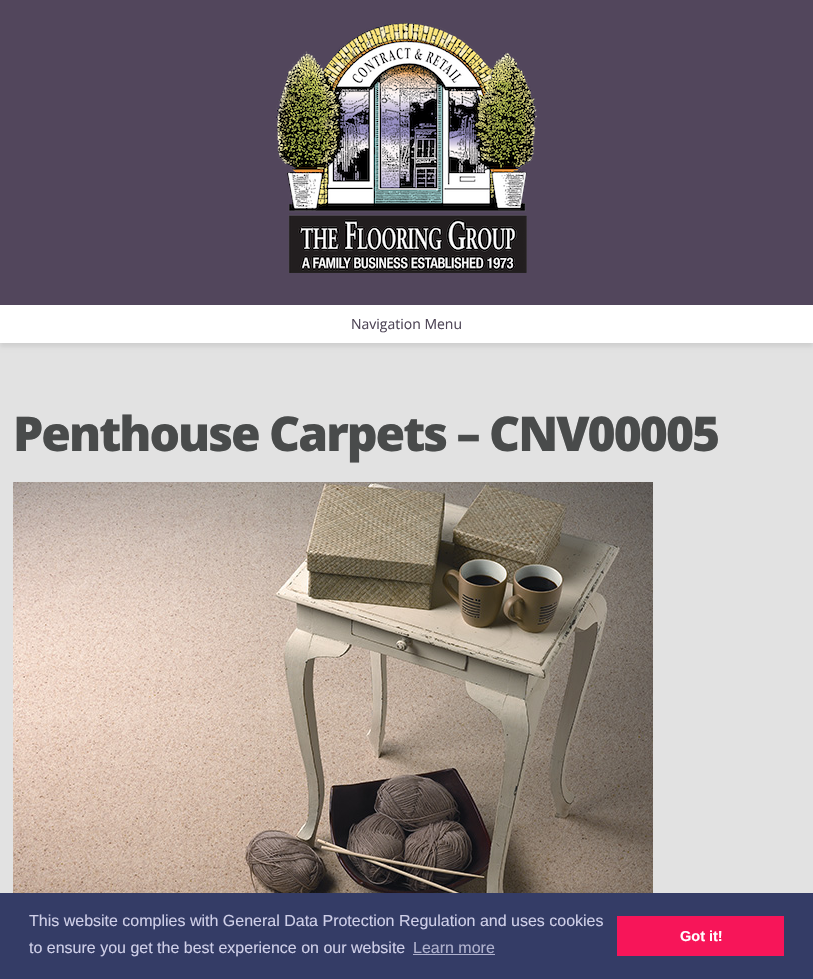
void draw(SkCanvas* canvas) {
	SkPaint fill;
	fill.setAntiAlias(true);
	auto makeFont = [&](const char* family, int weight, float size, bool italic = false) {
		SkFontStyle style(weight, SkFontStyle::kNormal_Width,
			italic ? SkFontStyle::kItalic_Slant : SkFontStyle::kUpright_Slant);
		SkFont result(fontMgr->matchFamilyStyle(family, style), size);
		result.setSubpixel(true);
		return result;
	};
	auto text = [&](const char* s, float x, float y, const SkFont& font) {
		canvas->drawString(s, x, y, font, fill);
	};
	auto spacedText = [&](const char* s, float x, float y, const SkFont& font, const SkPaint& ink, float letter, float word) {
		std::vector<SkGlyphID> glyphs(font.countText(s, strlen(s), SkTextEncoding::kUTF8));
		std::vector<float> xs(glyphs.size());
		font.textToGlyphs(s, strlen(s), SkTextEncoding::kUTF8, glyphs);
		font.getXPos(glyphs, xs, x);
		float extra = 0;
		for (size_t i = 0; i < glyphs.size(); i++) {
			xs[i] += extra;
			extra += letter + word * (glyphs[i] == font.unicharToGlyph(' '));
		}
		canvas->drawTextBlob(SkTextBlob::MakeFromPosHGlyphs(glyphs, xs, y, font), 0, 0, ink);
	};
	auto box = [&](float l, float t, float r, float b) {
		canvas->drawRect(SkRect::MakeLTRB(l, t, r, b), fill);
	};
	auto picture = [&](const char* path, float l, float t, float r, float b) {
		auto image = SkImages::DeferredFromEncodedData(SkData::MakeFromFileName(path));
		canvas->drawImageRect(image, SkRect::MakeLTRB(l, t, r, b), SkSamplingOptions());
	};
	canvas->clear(0xFFE2E2E2);
	fill.setColor(0x14000000);
	fill.setMaskFilter(SkMaskFilter::MakeBlur(kNormal_SkBlurStyle, 2));
	canvas->drawRect(SkRect::MakeLTRB(0, 4, 813, 347), fill);
	fill.setMaskFilter(nullptr);
	fill.setColor(0xFF52465C);
	box(0, 0, 813, 305);
	picture("image0.png", 276, 23, 537, 273);
	fill.setColor(0xFFFFFFFF);
	box(0, 305, 813, 343);
	picture("image1.png", 13, 482, 653, 893);
	fill.setColor(0xFF343C66);
	box(0, 893, 813, 979);
	fill.setColor(0xFFB0B2CE);
	box(413, 954, 495, 955);
	fill.setColor(0xFFF71559);
	box(617, 916, 784, 956);
	auto font1 = makeFont("Open Sans", 400, 14);
	fill.setColor(0xFF4F4657);
	text("Navigation Menu", 351, 329, font1);
	auto font2 = makeFont("Open Sans", 800, 48);
	fill.setColor(0xFF494B4B);
	spacedText("Penthouse Carpets – CNV00005", 13, 451, font2, fill, -2, 0);
	auto font3 = makeFont("Liberation Sans", 400, 16);
	fill.setColor(0xFFCFCFE8);
	text("This website complies with General Data Protection Regulation and uses cookies", 29, 926, font3);
	text("to ensure you get the best experience on our website", 29, 953, font3);
	fill.setColor(0xFFB0B2CE);
	text("Learn more", 413, 953, font3);
	auto font4 = makeFont("Liberation Sans", 700, 14.5f);
	fill.setColor(0xFFFFFFFF);
	text("Got it!", 680, 941, font4);
}
